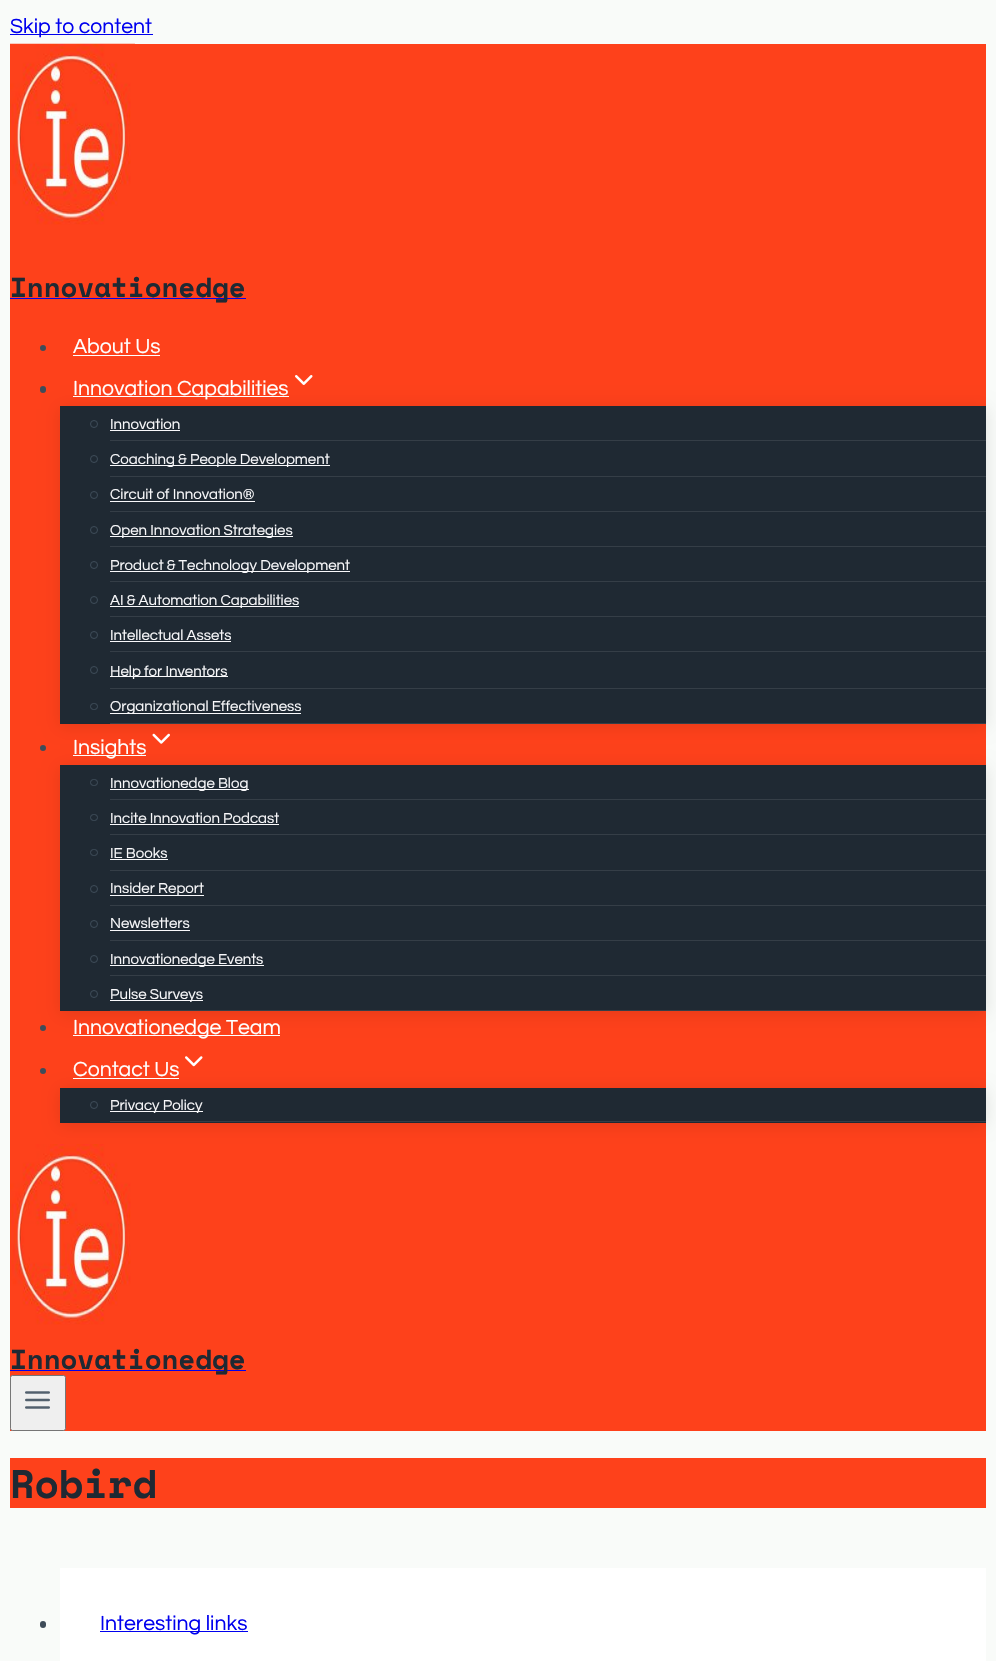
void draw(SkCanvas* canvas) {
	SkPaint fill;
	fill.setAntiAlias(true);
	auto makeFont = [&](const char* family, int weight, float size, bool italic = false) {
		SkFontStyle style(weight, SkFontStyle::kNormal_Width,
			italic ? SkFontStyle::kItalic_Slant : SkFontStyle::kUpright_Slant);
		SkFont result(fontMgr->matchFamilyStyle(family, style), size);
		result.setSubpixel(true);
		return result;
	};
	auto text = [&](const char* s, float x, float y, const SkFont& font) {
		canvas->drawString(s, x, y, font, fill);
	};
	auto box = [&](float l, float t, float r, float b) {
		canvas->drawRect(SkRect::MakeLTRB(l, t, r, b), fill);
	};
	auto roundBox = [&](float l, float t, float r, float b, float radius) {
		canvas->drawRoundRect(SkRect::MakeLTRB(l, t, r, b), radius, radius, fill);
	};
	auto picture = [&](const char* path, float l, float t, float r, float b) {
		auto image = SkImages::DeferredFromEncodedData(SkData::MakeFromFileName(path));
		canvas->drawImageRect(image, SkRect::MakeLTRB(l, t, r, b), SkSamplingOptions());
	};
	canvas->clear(0xFFF9FBF9);
	fill.setColor(0xFF0000EE);
	box(10, 34, 153, 35);
	fill.setColor(0xFFFE411B);
	box(10, 44, 986, 1431);
	picture("image0.png", 10, 43, 135, 225);
	fill.setColor(0xFF0000EE);
	box(10, 298, 246, 299);
	fill.setColor(0xFF3E4C59);
	canvas->drawCircle(43, 348, 3, fill);
	fill.setColor(0xFFFFFFFF);
	box(73, 355, 160, 356);
	fill.setColor(0x1A000000);
	fill.setMaskFilter(SkMaskFilter::MakeBlur(kNormal_SkBlurStyle, 8));
	canvas->drawRect(SkRect::MakeLTRB(60, 409, 986, 726), fill);
	fill.setMaskFilter(nullptr);
	fill.setColor(0xFF3E4C59);
	roundBox(40, 386, 46, 393, 3);
	fill.setColor(0xFFFFFFFF);
	box(73, 396, 289, 397);
	picture("image1.png", 295, 375, 313, 385);
	fill.setColor(0xFF1F2933);
	box(60, 406, 986, 724);
	fill.setColor(0xFF353E47);
	box(110, 440, 986, 441);
	fill.setStyle(SkPaint::kStroke_Style);
	fill.setStrokeWidth(1);
	fill.setColor(0xFF3E4C59);
	canvas->drawCircle(94, 424, 3.5f, fill);
	fill.setStyle(SkPaint::kFill_Style);
	fill.setColor(0xFFF9F9FB);
	box(110, 430, 180, 431);
	fill.setColor(0xFF353E47);
	box(110, 476, 986, 477);
	fill.setStyle(SkPaint::kStroke_Style);
	fill.setColor(0xFF3E4C59);
	canvas->drawCircle(94, 459, 3.5f, fill);
	fill.setStyle(SkPaint::kFill_Style);
	fill.setColor(0xFFF9F9FB);
	box(110, 465, 330, 466);
	fill.setColor(0xFF353E47);
	box(110, 511, 986, 512);
	fill.setStyle(SkPaint::kStroke_Style);
	fill.setColor(0xFF3E4C59);
	canvas->drawCircle(94, 495, 3.5f, fill);
	fill.setStyle(SkPaint::kFill_Style);
	fill.setColor(0xFFF9F9FB);
	box(110, 501, 255, 502);
	fill.setColor(0xFF353E47);
	box(110, 546, 986, 547);
	fill.setStyle(SkPaint::kStroke_Style);
	fill.setColor(0xFF3E4C59);
	canvas->drawCircle(94, 530, 3.5f, fill);
	fill.setStyle(SkPaint::kFill_Style);
	fill.setColor(0xFFF9F9FB);
	box(110, 536, 293, 537);
	fill.setColor(0xFF353E47);
	box(110, 581, 986, 582);
	fill.setStyle(SkPaint::kStroke_Style);
	fill.setColor(0xFF3E4C59);
	canvas->drawCircle(94, 565, 3.5f, fill);
	fill.setStyle(SkPaint::kFill_Style);
	fill.setColor(0xFFF9F9FB);
	box(110, 571, 350, 572);
	fill.setColor(0xFF353E47);
	box(110, 616, 986, 617);
	fill.setStyle(SkPaint::kStroke_Style);
	fill.setColor(0xFF3E4C59);
	canvas->drawCircle(94, 600, 3.5f, fill);
	fill.setStyle(SkPaint::kFill_Style);
	fill.setColor(0xFFF9F9FB);
	box(110, 606, 299, 607);
	fill.setColor(0xFF353E47);
	box(110, 651, 986, 652);
	fill.setStyle(SkPaint::kStroke_Style);
	fill.setColor(0xFF3E4C59);
	canvas->drawCircle(94, 635, 3.5f, fill);
	fill.setStyle(SkPaint::kFill_Style);
	fill.setColor(0xFFF9F9FB);
	box(110, 641, 231, 642);
	fill.setColor(0xFF353E47);
	box(110, 688, 986, 689);
	fill.setStyle(SkPaint::kStroke_Style);
	fill.setColor(0xFF3E4C59);
	canvas->drawCircle(94, 670, 3.5f, fill);
	fill.setStyle(SkPaint::kFill_Style);
	fill.setColor(0xFFF9F9FB);
	box(110, 676, 228, 677);
	fill.setColor(0xFF353E47);
	box(110, 723, 986, 724);
	fill.setStyle(SkPaint::kStroke_Style);
	fill.setColor(0xFF3E4C59);
	canvas->drawRoundRect(SkRect::MakeLTRB(90.5f, 703.5f, 97.5f, 709.5f), 3, 3, fill);
	fill.setStyle(SkPaint::kFill_Style);
	fill.setColor(0xFFF9F9FB);
	box(110, 713, 301, 714);
	fill.setColor(0x1A000000);
	fill.setMaskFilter(SkMaskFilter::MakeBlur(kNormal_SkBlurStyle, 8));
	canvas->drawRect(SkRect::MakeLTRB(60, 768, 986, 1014), fill);
	fill.setMaskFilter(nullptr);
	fill.setColor(0xFF3E4C59);
	canvas->drawCircle(43, 748, 3, fill);
	fill.setColor(0xFFFFFFFF);
	box(73, 755, 146, 756);
	picture("image2.png", 152, 733, 170, 744);
	fill.setColor(0xFF1F2933);
	box(60, 765, 986, 1011);
	fill.setColor(0xFF353E47);
	box(110, 799, 986, 800);
	fill.setStyle(SkPaint::kStroke_Style);
	fill.setColor(0xFF3E4C59);
	canvas->drawRoundRect(SkRect::MakeLTRB(90.5f, 779.5f, 97.5f, 785.5f), 3, 3, fill);
	fill.setStyle(SkPaint::kFill_Style);
	fill.setColor(0xFFF9F9FB);
	box(110, 789, 249, 790);
	fill.setColor(0xFF353E47);
	box(110, 834, 986, 835);
	fill.setStyle(SkPaint::kStroke_Style);
	fill.setColor(0xFF3E4C59);
	canvas->drawRoundRect(SkRect::MakeLTRB(90.5f, 814.5f, 97.5f, 820.5f), 3, 3, fill);
	fill.setStyle(SkPaint::kFill_Style);
	fill.setColor(0xFFF9F9FB);
	box(110, 824, 279, 825);
	fill.setColor(0xFF353E47);
	box(110, 870, 986, 871);
	fill.setStyle(SkPaint::kStroke_Style);
	fill.setColor(0xFF3E4C59);
	canvas->drawRoundRect(SkRect::MakeLTRB(90.5f, 849.5f, 97.5f, 855.5f), 3, 3, fill);
	fill.setStyle(SkPaint::kFill_Style);
	fill.setColor(0xFFF9F9FB);
	box(110, 859, 168, 860);
	fill.setColor(0xFF353E47);
	box(110, 905, 986, 906);
	fill.setStyle(SkPaint::kStroke_Style);
	fill.setColor(0xFF3E4C59);
	canvas->drawCircle(94, 889, 3.5f, fill);
	fill.setStyle(SkPaint::kFill_Style);
	fill.setColor(0xFFF9F9FB);
	box(110, 895, 204, 896);
	fill.setColor(0xFF353E47);
	box(110, 940, 986, 941);
	fill.setStyle(SkPaint::kStroke_Style);
	fill.setColor(0xFF3E4C59);
	canvas->drawCircle(94, 924, 3.5f, fill);
	fill.setStyle(SkPaint::kFill_Style);
	fill.setColor(0xFFF9F9FB);
	box(110, 930, 190, 931);
	fill.setColor(0xFF353E47);
	box(110, 975, 986, 976);
	fill.setStyle(SkPaint::kStroke_Style);
	fill.setColor(0xFF3E4C59);
	canvas->drawCircle(94, 959, 3.5f, fill);
	fill.setStyle(SkPaint::kFill_Style);
	fill.setColor(0xFFF9F9FB);
	box(110, 965, 264, 966);
	fill.setColor(0xFF353E47);
	box(110, 1010, 986, 1011);
	fill.setStyle(SkPaint::kStroke_Style);
	fill.setColor(0xFF3E4C59);
	canvas->drawCircle(94, 994, 3.5f, fill);
	fill.setStyle(SkPaint::kFill_Style);
	fill.setColor(0xFFF9F9FB);
	box(110, 1000, 203, 1001);
	fill.setColor(0xFF3E4C59);
	canvas->drawCircle(43, 1028, 3, fill);
	fill.setColor(0xFFFFFFFF);
	box(73, 1035, 280, 1036);
	fill.setColor(0x1A000000);
	fill.setMaskFilter(SkMaskFilter::MakeBlur(kNormal_SkBlurStyle, 8));
	canvas->drawRect(SkRect::MakeLTRB(60, 1090, 986, 1125), fill);
	fill.setMaskFilter(nullptr);
	fill.setColor(0xFF3E4C59);
	canvas->drawCircle(43, 1071, 3, fill);
	fill.setColor(0xFFFFFFFF);
	box(73, 1078, 179, 1079);
	picture("image3.png", 185, 1056, 203, 1067);
	fill.setColor(0xFF1F2933);
	box(60, 1088, 986, 1123);
	fill.setColor(0xFF353E47);
	box(110, 1121, 986, 1122);
	fill.setStyle(SkPaint::kStroke_Style);
	fill.setColor(0xFF3E4C59);
	canvas->drawCircle(94, 1105, 3.5f, fill);
	fill.setStyle(SkPaint::kFill_Style);
	fill.setColor(0xFFF9F9FB);
	box(110, 1111, 203, 1112);
	picture("image4.png", 10, 1144, 131, 1325);
	fill.setColor(0xFF0000EE);
	box(10, 1370, 246, 1371);
	fill.setColor(0xFFEFEFEF);
	canvas->drawRoundRect(SkRect::MakeLTRB(10.5f, 1375.5f, 65.5f, 1430.5f), 2, 2, fill);
	fill.setStyle(SkPaint::kStroke_Style);
	fill.setColor(0xFF767676);
	canvas->drawRoundRect(SkRect::MakeLTRB(10.5f, 1375.5f, 65.5f, 1430.5f), 2, 2, fill);
	picture("image5.png", 25, 1391, 50, 1409);
	fill.setStyle(SkPaint::kFill_Style);
	fill.setColor(0xFFFE411B);
	box(10, 1458, 986, 1508);
	fill.setColor(0xFF3E4C59);
	roundBox(40, 1621, 46, 1628, 3);
	fill.setColor(0xFFFFFFFF);
	box(60, 1568, 986, 1661);
	fill.setColor(0xFF0000EE);
	box(100, 1631, 248, 1632);
	auto font1 = makeFont("Questrial", 400, 21.25f);
	text("Skip to content", 10, 33, font1);
	auto font2 = makeFont("Space Mono", 700, 27.5f);
	fill.setColor(0xFF1F2933);
	text("Innovationedge", 10, 297, font2);
	fill.setColor(0xFFFFFFFF);
	text("About Us", 73, 353, font1);
	text("Innovation Capabilities", 73, 395, font1);
	auto font3 = makeFont("Questrial", 400, 15);
	fill.setColor(0xFFF9F9FB);
	text("Innovation", 110, 429, font3);
	text("Coaching & People Development", 110, 464, font3);
	text("Circuit of Innovation®", 110, 499, font3);
	text("Open Innovation Strategies", 110, 535, font3);
	text("Product & Technology Development", 110, 570, font3);
	text("AI & Automation Capabilities", 110, 605, font3);
	text("Intellectual Assets", 110, 640, font3);
	text("Help for Inventors", 110, 676, font3);
	text("Organizational Effectiveness", 110, 711, font3);
	fill.setColor(0xFFFFFFFF);
	text("Insights", 73, 754, font1);
	fill.setColor(0xFFF9F9FB);
	text("Innovationedge Blog", 110, 788, font3);
	text("Incite Innovation Podcast", 110, 823, font3);
	text("IE Books", 110, 858, font3);
	text("Insider Report", 110, 893, font3);
	text("Newsletters", 110, 928, font3);
	text("Innovationedge Events", 110, 964, font3);
	text("Pulse Surveys", 110, 999, font3);
	fill.setColor(0xFFFFFFFF);
	text("Innovationedge Team", 73, 1034, font1);
	text("Contact Us", 73, 1076, font1);
	fill.setColor(0xFFF9F9FB);
	text("Privacy Policy", 110, 1110, font3);
	fill.setColor(0xFF1F2933);
	text("Innovationedge", 10, 1369, font2);
	auto font4 = makeFont("Space Mono", 700, 40);
	text("Robird", 10, 1498, font4);
	fill.setColor(0xFF0000EE);
	text("Interesting links", 100, 1630, font1);
}
